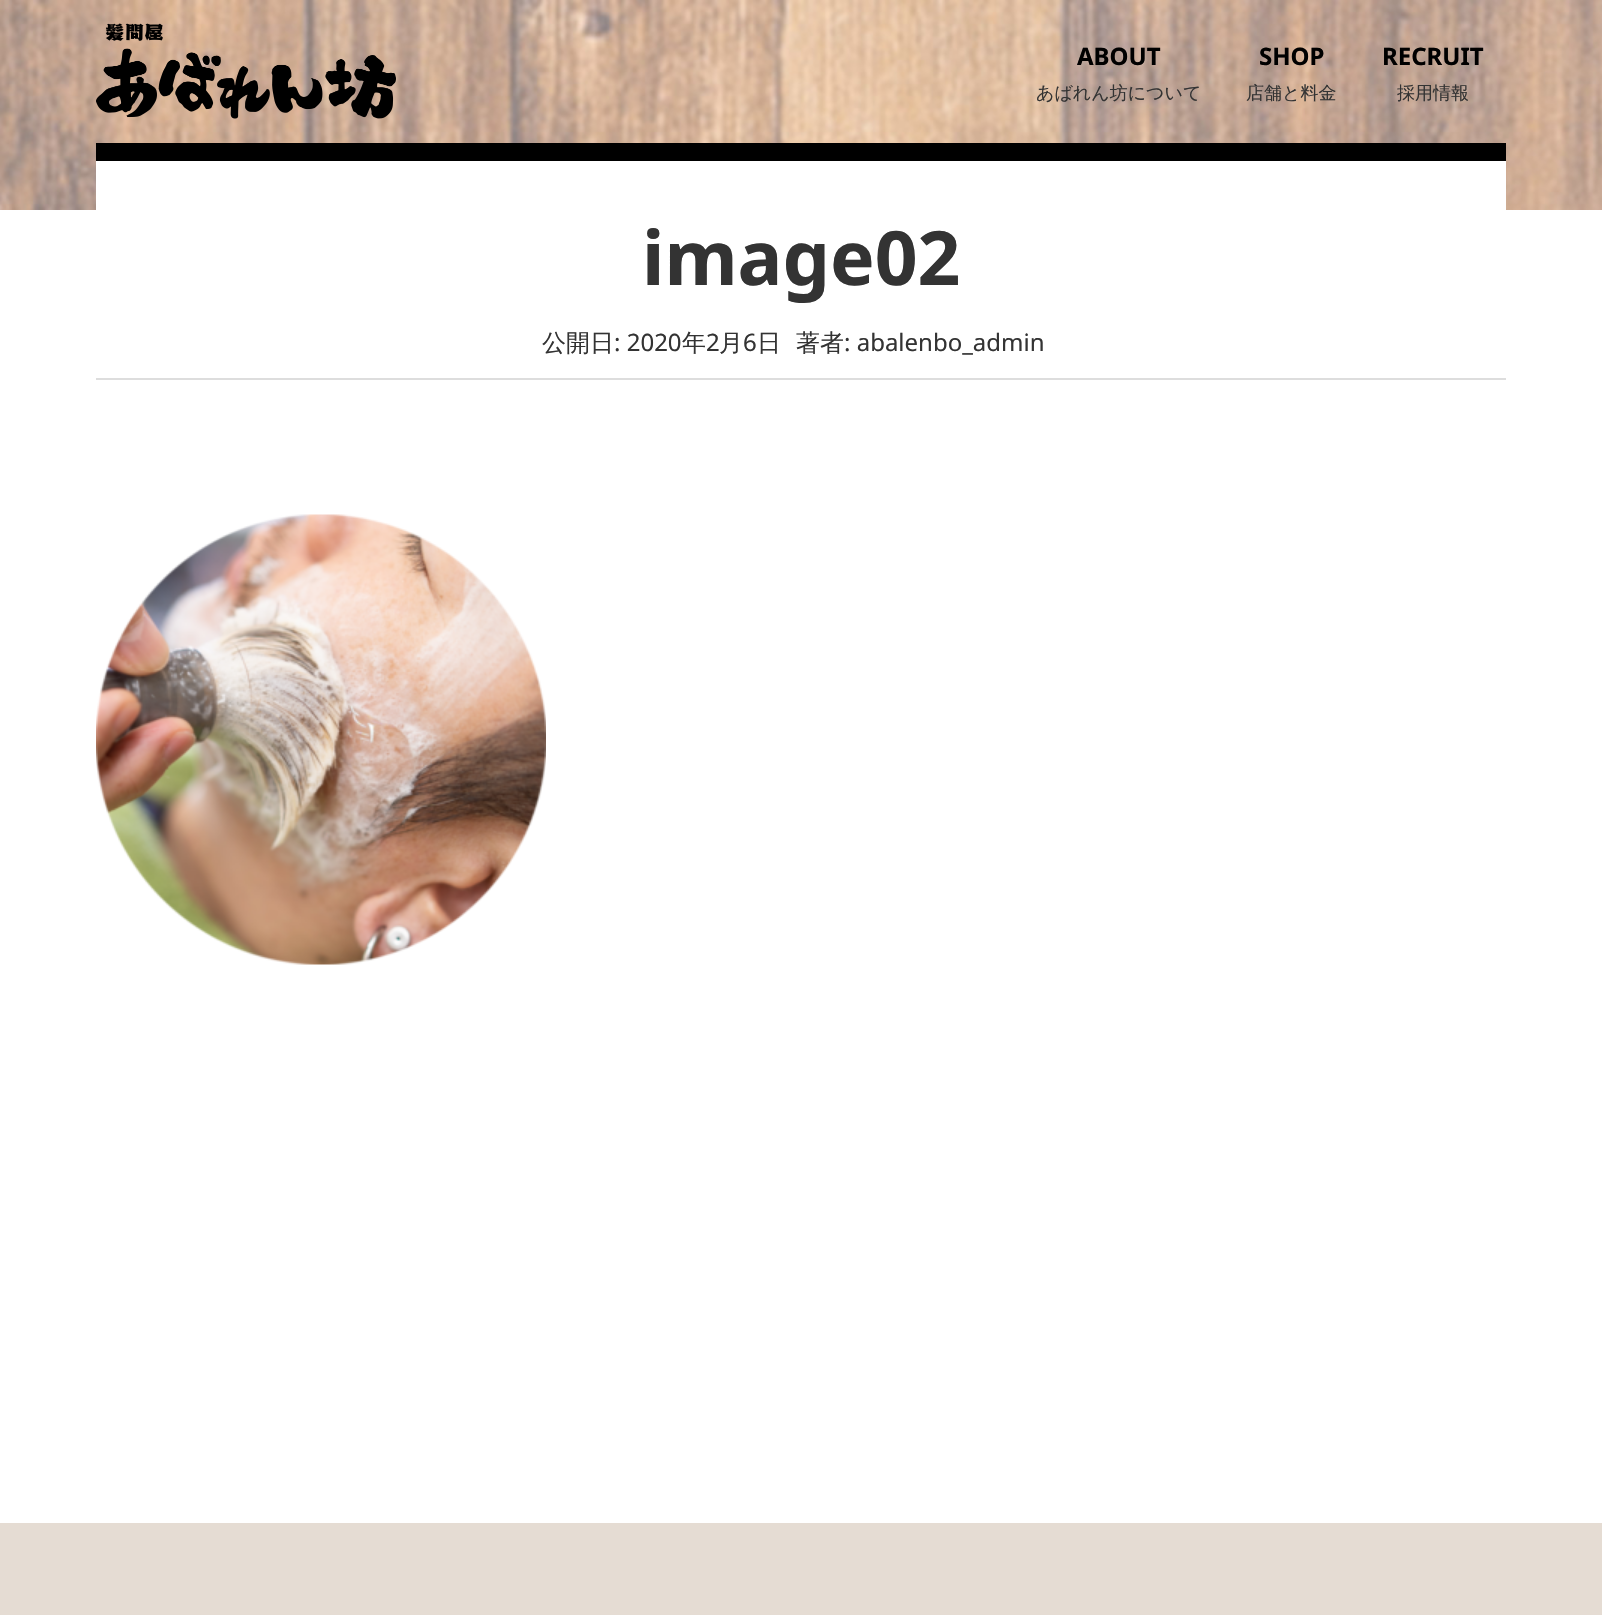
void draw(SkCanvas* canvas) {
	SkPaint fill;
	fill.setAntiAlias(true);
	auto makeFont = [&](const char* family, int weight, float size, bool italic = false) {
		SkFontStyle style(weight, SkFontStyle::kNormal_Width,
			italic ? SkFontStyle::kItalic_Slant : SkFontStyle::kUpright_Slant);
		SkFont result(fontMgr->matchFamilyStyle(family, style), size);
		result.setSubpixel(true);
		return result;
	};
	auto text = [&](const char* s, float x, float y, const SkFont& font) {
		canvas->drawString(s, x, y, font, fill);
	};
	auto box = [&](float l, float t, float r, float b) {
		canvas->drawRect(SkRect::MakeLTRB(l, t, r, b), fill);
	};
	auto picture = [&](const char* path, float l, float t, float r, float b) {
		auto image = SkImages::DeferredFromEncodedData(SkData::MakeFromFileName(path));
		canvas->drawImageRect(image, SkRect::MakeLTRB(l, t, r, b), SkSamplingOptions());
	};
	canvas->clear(0xFFFFFFFF);
	picture("image0.png", 0, 0, 1602, 210);
	picture("image1.png", 96, 23, 396, 119);
	fill.setColor(0xFFFFFFFF);
	box(96, 161, 1506, 210);
	fill.setColor(0xFF000000);
	box(96, 143, 1506, 161);
	fill.setColor(0xFFDDDDDD);
	box(96, 378, 1506, 380);
	picture("image2.png", 96, 514, 546, 965);
	fill.setColor(0xFFE5DCD3);
	box(0, 1523, 1602, 1615);
	auto font1 = makeFont("Noto Sans", 700, 24);
	fill.setColor(0xFF000000);
	text("ABOUT", 1077, 65, font1);
	auto font2 = makeFont("WenQuanYi Zen Hei", 500, 18);
	fill.setColor(0xFF333333);
	text("あばれん坊について", 1036, 99, font2);
	fill.setColor(0xFF000000);
	text("SHOP", 1259, 65, font1);
	fill.setColor(0xFF333333);
	text("店舗と料金", 1246, 99, font2);
	fill.setColor(0xFF000000);
	text("RECRUIT", 1382, 65, font1);
	fill.setColor(0xFF333333);
	text("採用情報", 1397, 99, font2);
	auto font3 = makeFont("Noto Sans", 700, 75);
	text("image02", 642, 285, font3);
	auto font4 = makeFont("WenQuanYi Zen Hei", 500, 24);
	text("公開日", 542, 351, font4);
	auto font5 = makeFont("Noto Sans", 400, 24);
	text(": 2020", 614, 351, font5);
	text("年", 682, 351, font4);
	text("2", 706, 351, font5);
	text("月", 719, 351, font4);
	text("6", 743, 351, font5);
	text("日", 757, 351, font4);
	text("著者", 796, 351, font4);
	text(": abalenbo_admin", 844, 351, font5);
}
